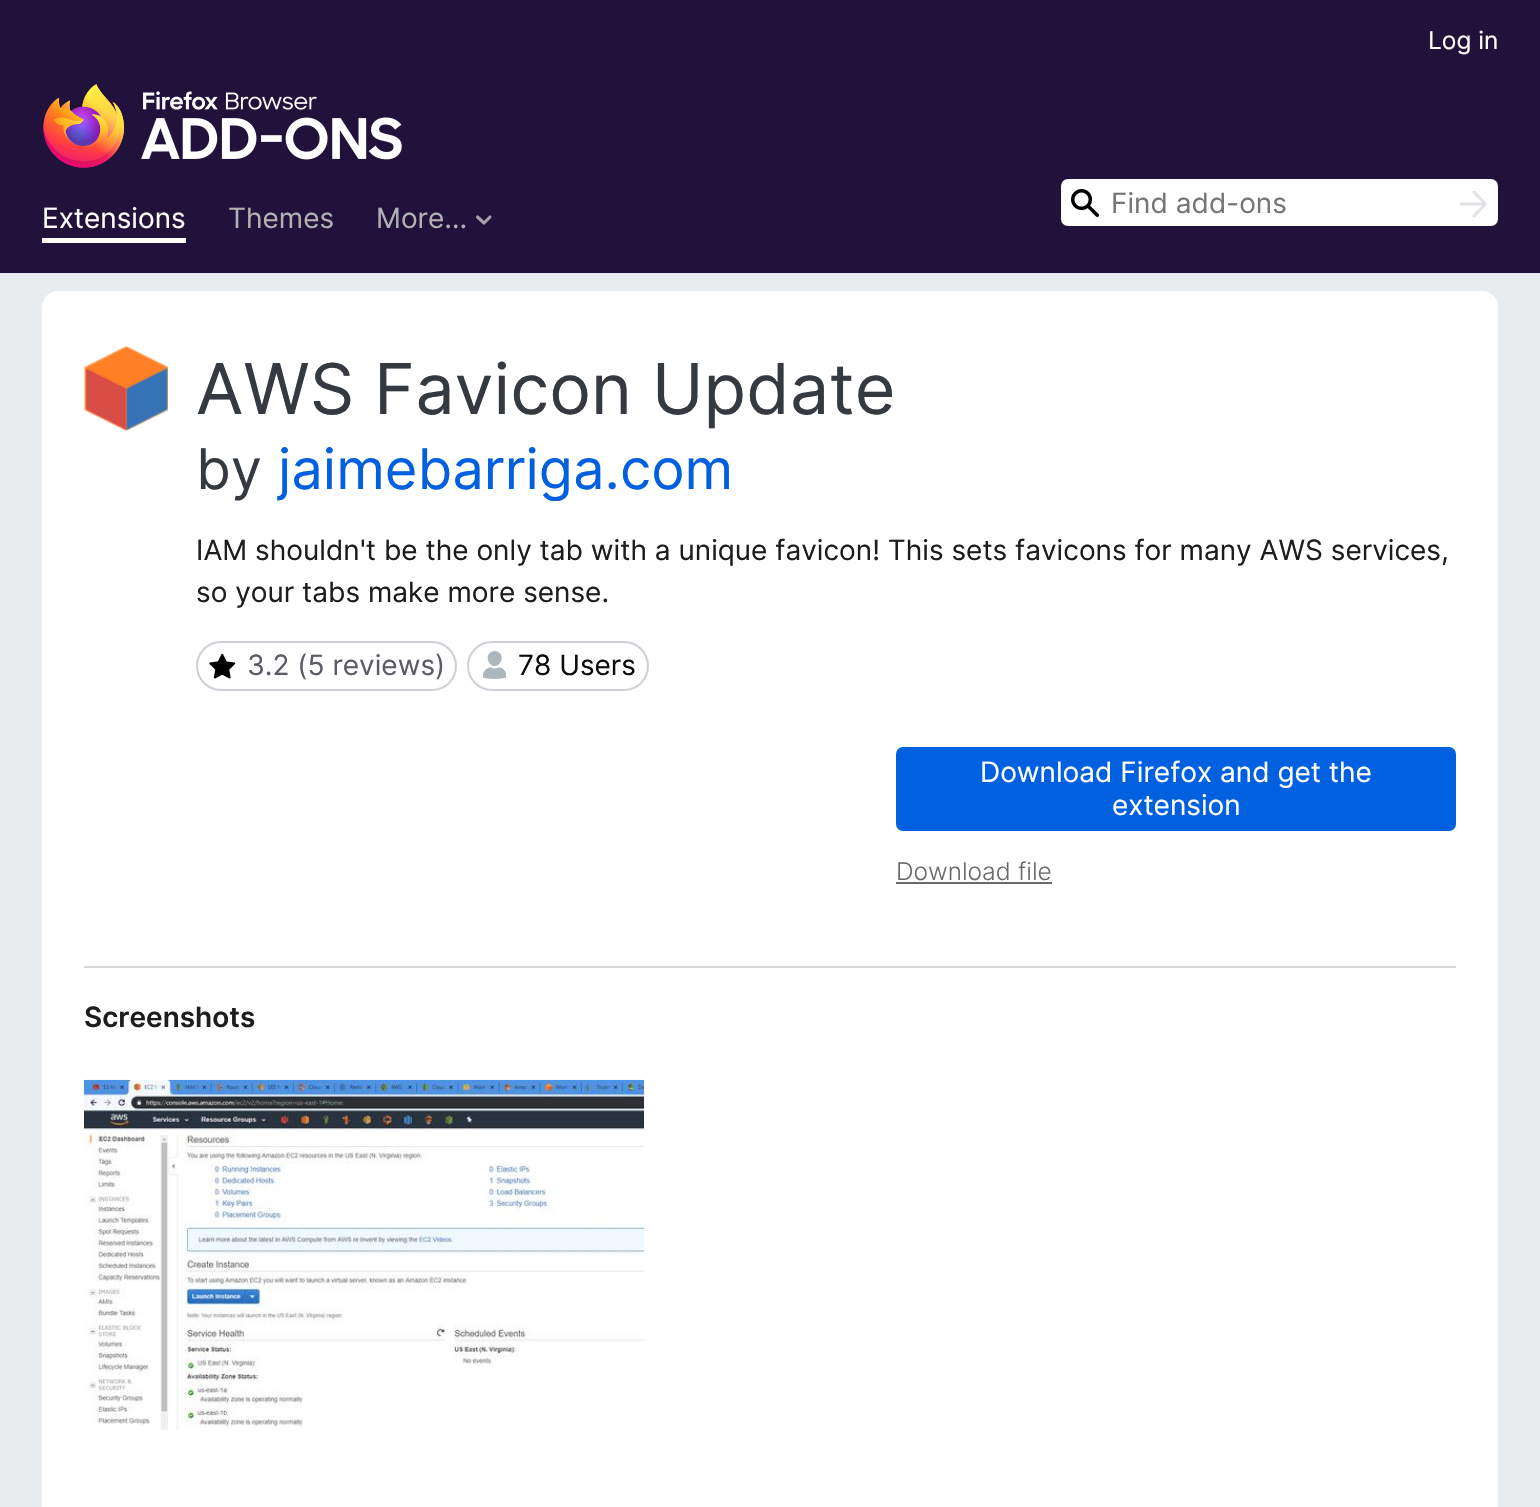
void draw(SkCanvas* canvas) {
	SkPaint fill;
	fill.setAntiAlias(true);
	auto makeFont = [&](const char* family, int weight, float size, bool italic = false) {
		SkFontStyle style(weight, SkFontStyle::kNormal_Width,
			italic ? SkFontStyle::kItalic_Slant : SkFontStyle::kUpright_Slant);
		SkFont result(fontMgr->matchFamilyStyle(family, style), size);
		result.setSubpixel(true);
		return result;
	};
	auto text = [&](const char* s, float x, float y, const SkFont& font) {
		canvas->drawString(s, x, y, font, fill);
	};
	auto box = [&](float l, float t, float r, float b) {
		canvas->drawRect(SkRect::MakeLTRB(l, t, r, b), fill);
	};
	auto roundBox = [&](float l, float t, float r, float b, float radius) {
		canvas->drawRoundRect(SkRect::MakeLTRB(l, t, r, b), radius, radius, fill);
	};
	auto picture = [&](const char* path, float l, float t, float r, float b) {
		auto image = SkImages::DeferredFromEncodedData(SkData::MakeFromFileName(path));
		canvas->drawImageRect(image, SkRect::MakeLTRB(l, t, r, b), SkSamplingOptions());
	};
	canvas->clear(0xFF20123A);
	picture("image0.png", 43, 84, 402, 168);
	fill.setColor(0xFFFFFFFF);
	canvas->drawRoundRect(SkRect::MakeLTRB(1062, 180, 1497, 225), 6, 6, fill);
	fill.setStyle(SkPaint::kStroke_Style);
	fill.setStrokeWidth(2);
	canvas->drawRoundRect(SkRect::MakeLTRB(1062, 180, 1497, 225), 6, 6, fill);
	picture("image1.png", 1071, 189, 1099, 217);
	canvas->save();
	canvas->clipRect(SkRect::MakeLTRB(1460, 191, 1488, 219));
	fill.setStrokeWidth(2.9f);
	fill.setStrokeCap(SkPaint::kRound_Cap);
	fill.setStrokeJoin(SkPaint::kRound_Join);
	fill.setColor(0xFFE1E1E5);
	canvas->drawPath(SkPathBuilder().moveTo(1461, 204).lineTo(1484, 204).moveTo(1474, 192).lineTo(1485.5f, 204).lineTo(1474, 216).detach(), fill);
	canvas->restore();
	fill.setStyle(SkPaint::kFill_Style);
	fill.setColor(0xFFFFFFFF);
	box(42, 238, 186, 243);
	fill.setStyle(SkPaint::kStroke_Style);
	fill.setStrokeWidth(3.1f);
	fill.setColor(0xFFA6A0B0);
	canvas->drawPath(SkPathBuilder().moveTo(490, 217).lineTo(484, 223).lineTo(477.5f, 217).detach(), fill);
	fill.setStyle(SkPaint::kFill_Style);
	fill.setColor(0xFFE9ECEF);
	box(0, 273, 1540, 1507);
	fill.setColor(0xFFFFFFFF);
	roundBox(42, 291, 1498, 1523, 16);
	picture("image2.png", 84, 346, 168, 431);
	fill.setStyle(SkPaint::kStroke_Style);
	fill.setStrokeWidth(2);
	fill.setStrokeCap(SkPaint::kButt_Cap);
	fill.setStrokeJoin(SkPaint::kMiter_Join);
	fill.setColor(0xFFCFCFD8);
	canvas->drawRoundRect(SkRect::MakeLTRB(197, 642, 456, 690), 24, 24, fill);
	picture("image3.png", 209, 653, 236, 679);
	canvas->drawRoundRect(SkRect::MakeLTRB(468, 642, 648, 690), 24, 24, fill);
	picture("image4.png", 483, 651, 506, 679);
	fill.setStyle(SkPaint::kFill_Style);
	fill.setColor(0xFF0060DF);
	roundBox(896, 747, 1456, 831, 7);
	fill.setColor(0xFF6A6A6A);
	box(896, 882, 1052, 884);
	fill.setColor(0xFFD7D7DB);
	box(84, 966, 1456, 968);
	picture("image5.png", 84, 1079, 644, 1430);
	auto font1 = makeFont("Inter", 400, 24.5f);
	fill.setColor(0xFFFFFFFF);
	text("Log in", 1428, 49, font1);
	auto font2 = makeFont("Inter", 400, 28);
	fill.setColor(0xFF757575);
	text("Find add-ons", 1111, 213, font2);
	fill.setColor(0xFFFFFFFF);
	text("Extensions", 42, 228, font2);
	fill.setColor(0xFFB1B1B3);
	text("Themes", 228, 228, font2);
	text("More…", 376, 228, font2);
	auto font3 = makeFont("Inter", 400, 70);
	fill.setColor(0xFF343A40);
	text("AWS Favicon Update", 196, 414, font3);
	auto font4 = makeFont("Inter", 400, 56);
	text("by", 196, 489, font4);
	fill.setColor(0xFF0060DF);
	text("jaimebarriga.com", 278, 489, font4);
	fill.setColor(0xFF1D1D1D);
	text("IAM shouldn't be the only tab with a unique favicon! This sets favicons for many AWS services,", 196, 560, font2);
	text("so your tabs make more sense.", 196, 602, font2);
	fill.setColor(0xFF5B5B66);
	text("3.2 (5 reviews)", 247, 675, font2);
	fill.setColor(0xFF0C0C0D);
	text("78 Users", 518, 675, font2);
	fill.setColor(0xFFFFFFFF);
	text("Download Firefox and get the", 980, 782, font2);
	text("extension", 1112, 815, font2);
	auto font5 = makeFont("Inter", 300, 24.5f);
	fill.setColor(0xFF6A6A6A);
	text("Download file", 896, 880, font5);
	auto font6 = makeFont("Inter", 600, 28);
	fill.setColor(0xFF1D1D1D);
	text("Screenshots", 84, 1027, font6);
}
